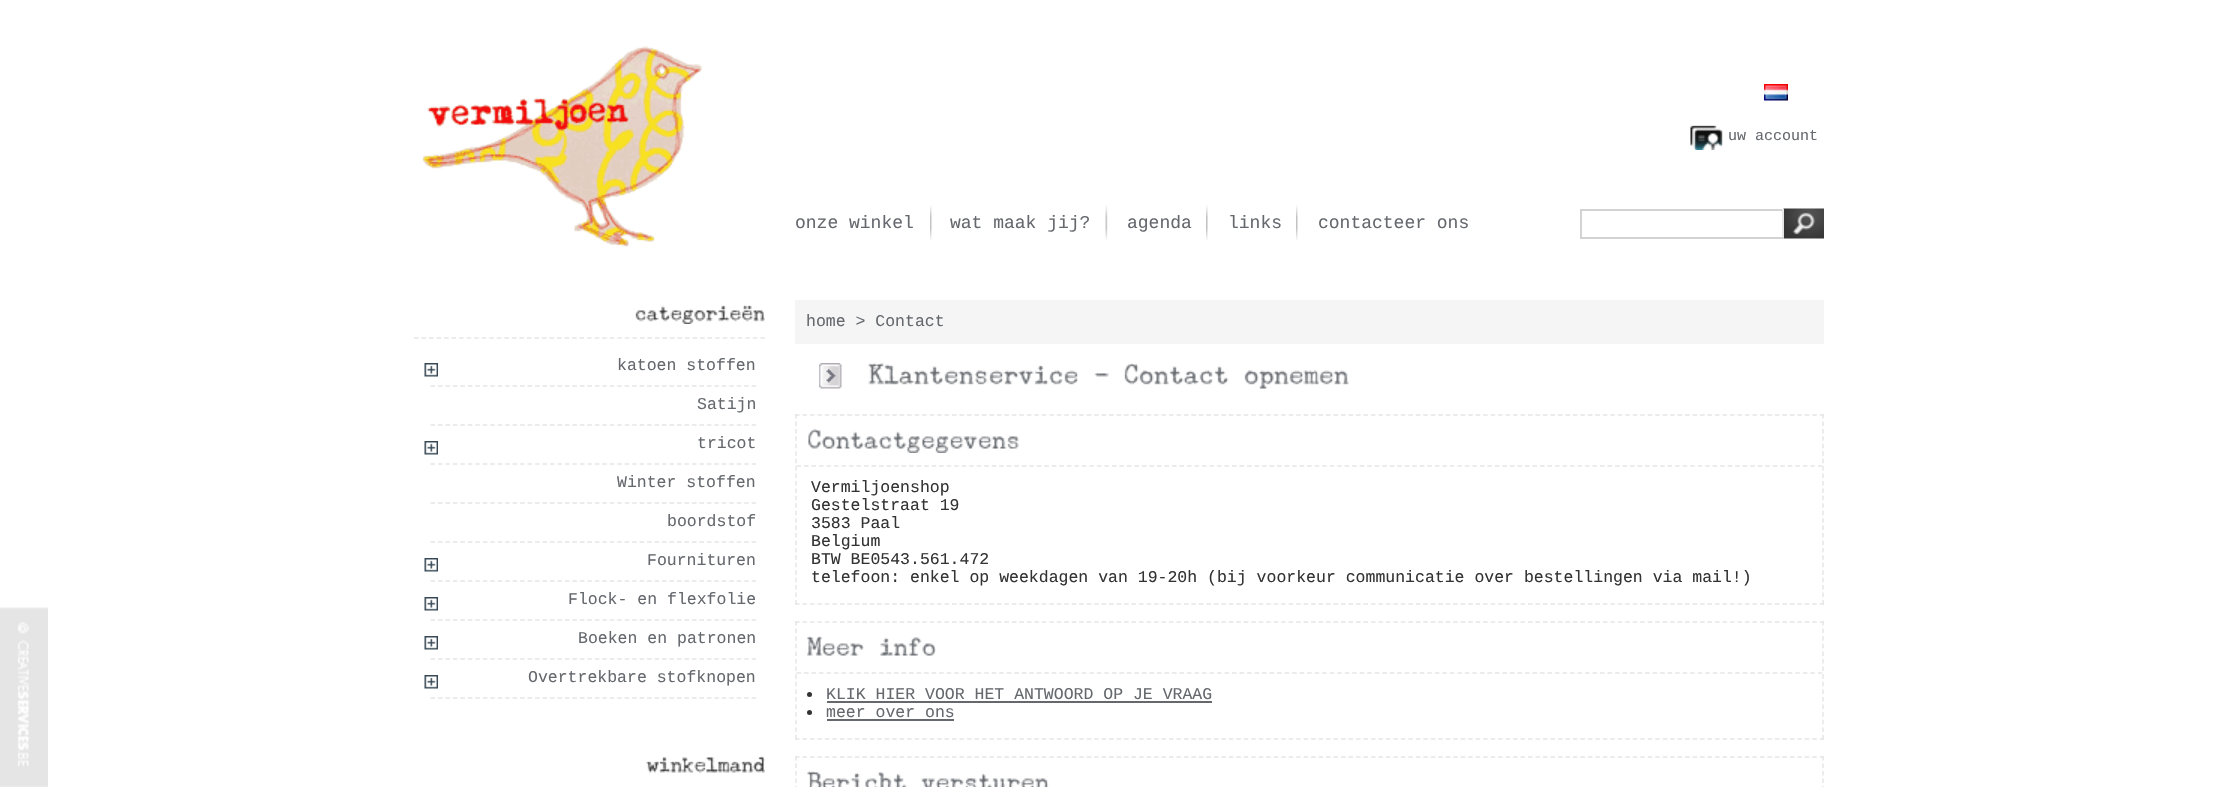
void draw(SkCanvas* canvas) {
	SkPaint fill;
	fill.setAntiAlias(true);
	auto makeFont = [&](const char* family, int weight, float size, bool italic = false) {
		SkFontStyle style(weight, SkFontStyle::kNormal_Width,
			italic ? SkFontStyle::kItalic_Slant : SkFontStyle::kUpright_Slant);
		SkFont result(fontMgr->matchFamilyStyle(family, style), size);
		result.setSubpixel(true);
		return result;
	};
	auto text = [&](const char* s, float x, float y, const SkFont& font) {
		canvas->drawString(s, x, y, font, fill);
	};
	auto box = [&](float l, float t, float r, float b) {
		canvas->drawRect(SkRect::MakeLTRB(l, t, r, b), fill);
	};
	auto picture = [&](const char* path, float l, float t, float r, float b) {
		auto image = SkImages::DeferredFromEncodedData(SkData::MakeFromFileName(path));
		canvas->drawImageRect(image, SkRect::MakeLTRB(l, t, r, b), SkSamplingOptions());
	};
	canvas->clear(0xFFFFFFFF);
	picture("image0.png", 0, 607, 48, 787);
	picture("image1.png", 422, 46, 703, 247);
	picture("image2.png", 1764, 84, 1788, 101);
	picture("image3.png", 1690, 125, 1723, 150);
	picture("image4.png", 930, 205, 932, 241);
	picture("image5.png", 1105, 205, 1108, 241);
	picture("image6.png", 1206, 205, 1208, 241);
	picture("image4.png", 1296, 205, 1298, 241);
	picture("image7.png", 1783, 208, 1824, 239);
	fill.setColor(0xFFD3D3D3);
	box(1580, 209, 1784, 211);
	fill.setColor(0xFFE6E6E6);
	box(1782, 209, 1784, 239);
	fill.setColor(0xFFD3D3D3);
	box(1580, 237, 1784, 239);
	box(1580, 209, 1582, 239);
	fill.setStyle(SkPaint::kStroke_Style);
	fill.setStrokeWidth(1.5f);
	fill.setColor(0xFFE6E6E6);
	fill.setPathEffect(SkDashPathEffect::Make({{4.5f, 3.03f}}, 0));
	canvas->drawPath(SkPathBuilder().moveTo(414, 338).lineTo(765, 338).detach(), fill);
	fill.setPathEffect(nullptr);
	picture("image8.png", 635, 305, 765, 324);
	fill.setPathEffect(SkDashPathEffect::Make({{4.5f, 2.97f}}, 0));
	canvas->drawPath(SkPathBuilder().moveTo(430.5f, 386).lineTo(756, 386).detach(), fill);
	fill.setPathEffect(nullptr);
	picture("image9.png", 424, 363, 438, 377);
	fill.setPathEffect(SkDashPathEffect::Make({{4.5f, 2.97f}}, 0));
	canvas->drawPath(SkPathBuilder().moveTo(430.5f, 425).lineTo(756, 425).detach(), fill);
	fill.setPathEffect(nullptr);
	fill.setPathEffect(SkDashPathEffect::Make({{4.5f, 2.97f}}, 0));
	canvas->drawPath(SkPathBuilder().moveTo(430.5f, 464).lineTo(756, 464).detach(), fill);
	fill.setPathEffect(nullptr);
	picture("image9.png", 424, 441, 438, 455);
	fill.setPathEffect(SkDashPathEffect::Make({{4.5f, 2.97f}}, 0));
	canvas->drawPath(SkPathBuilder().moveTo(430.5f, 503).lineTo(756, 503).detach(), fill);
	fill.setPathEffect(nullptr);
	fill.setPathEffect(SkDashPathEffect::Make({{4.5f, 2.97f}}, 0));
	canvas->drawPath(SkPathBuilder().moveTo(430.5f, 542).lineTo(756, 542).detach(), fill);
	fill.setPathEffect(nullptr);
	fill.setPathEffect(SkDashPathEffect::Make({{4.5f, 2.97f}}, 0));
	canvas->drawPath(SkPathBuilder().moveTo(430.5f, 581).lineTo(756, 581).detach(), fill);
	fill.setPathEffect(nullptr);
	picture("image9.png", 424, 558, 438, 572);
	fill.setPathEffect(SkDashPathEffect::Make({{4.5f, 2.97f}}, 0));
	canvas->drawPath(SkPathBuilder().moveTo(430.5f, 620).lineTo(756, 620).detach(), fill);
	fill.setPathEffect(nullptr);
	picture("image9.png", 424, 597, 438, 611);
	fill.setPathEffect(SkDashPathEffect::Make({{4.5f, 2.97f}}, 0));
	canvas->drawPath(SkPathBuilder().moveTo(430.5f, 659).lineTo(756, 659).detach(), fill);
	fill.setPathEffect(nullptr);
	picture("image9.png", 424, 636, 438, 650);
	fill.setPathEffect(SkDashPathEffect::Make({{4.5f, 2.97f}}, 0));
	canvas->drawPath(SkPathBuilder().moveTo(430.5f, 698).lineTo(756, 698).detach(), fill);
	fill.setPathEffect(nullptr);
	picture("image9.png", 424, 675, 438, 689);
	picture("image10.png", 646, 756, 765, 773);
	fill.setStyle(SkPaint::kFill_Style);
	fill.setColor(0xFFF5F5F5);
	box(795, 300, 1824, 344);
	picture("image11.png", 819, 363, 842, 389);
	picture("image12.png", 868, 362, 1078, 385);
	picture("image13.png", 1094, 373, 1109, 377);
	picture("image14.png", 1124, 363, 1229, 385);
	picture("image15.png", 1244, 370, 1349, 389);
	fill.setStyle(SkPaint::kStroke_Style);
	fill.setColor(0xFFE6E6E6);
	fill.setPathEffect(SkDashPathEffect::Make({{4.5f, 2.98f}}, 0));
	canvas->drawPath(SkPathBuilder().moveTo(795, 415).lineTo(1824, 415).detach(), fill);
	fill.setPathEffect(nullptr);
	fill.setPathEffect(SkDashPathEffect::Make({{4.5f, 2.94f}}, 0));
	canvas->drawPath(SkPathBuilder().moveTo(1823, 414).lineTo(1823, 604.5f).detach(), fill);
	fill.setPathEffect(nullptr);
	fill.setPathEffect(SkDashPathEffect::Make({{4.5f, 2.98f}}, 0));
	canvas->drawPath(SkPathBuilder().moveTo(795, 604).lineTo(1824, 604).detach(), fill);
	fill.setPathEffect(nullptr);
	fill.setPathEffect(SkDashPathEffect::Make({{4.5f, 2.94f}}, 0));
	canvas->drawPath(SkPathBuilder().moveTo(796, 414).lineTo(796, 604.5f).detach(), fill);
	fill.setPathEffect(nullptr);
	fill.setPathEffect(SkDashPathEffect::Make({{4.5f, 3.01f}}, 0));
	canvas->drawPath(SkPathBuilder().moveTo(796.5f, 466).lineTo(1822.5f, 466).detach(), fill);
	fill.setPathEffect(nullptr);
	picture("image16.png", 808, 428, 1019, 453);
	fill.setPathEffect(SkDashPathEffect::Make({{4.5f, 2.98f}}, 0));
	canvas->drawPath(SkPathBuilder().moveTo(795, 622).lineTo(1824, 622).detach(), fill);
	fill.setPathEffect(nullptr);
	fill.setPathEffect(SkDashPathEffect::Make({{4.5f, 3.1f}}, 0));
	canvas->drawPath(SkPathBuilder().moveTo(1823, 621).lineTo(1823, 739.5f).detach(), fill);
	fill.setPathEffect(nullptr);
	fill.setPathEffect(SkDashPathEffect::Make({{4.5f, 2.98f}}, 0));
	canvas->drawPath(SkPathBuilder().moveTo(795, 739).lineTo(1824, 739).detach(), fill);
	fill.setPathEffect(nullptr);
	fill.setPathEffect(SkDashPathEffect::Make({{4.5f, 3.1f}}, 0));
	canvas->drawPath(SkPathBuilder().moveTo(796, 621).lineTo(796, 739.5f).detach(), fill);
	fill.setPathEffect(nullptr);
	fill.setPathEffect(SkDashPathEffect::Make({{4.5f, 3.01f}}, 0));
	canvas->drawPath(SkPathBuilder().moveTo(796.5f, 673).lineTo(1822.5f, 673).detach(), fill);
	fill.setPathEffect(nullptr);
	picture("image17.png", 807, 636, 865, 656);
	picture("image18.png", 880, 637, 936, 656);
	fill.setStyle(SkPaint::kFill_Style);
	fill.setColor(0xFF333333);
	canvas->drawCircle(809.5f, 694.5f, 2.5f, fill);
	fill.setColor(0xFF65696E);
	box(827, 701, 1212, 703);
	fill.setColor(0xFF333333);
	canvas->drawCircle(809.5f, 712.5f, 2.5f, fill);
	fill.setColor(0xFF65696E);
	box(827, 719, 954, 721);
	fill.setStyle(SkPaint::kStroke_Style);
	fill.setColor(0xFFE6E6E6);
	fill.setPathEffect(SkDashPathEffect::Make({{4.5f, 2.98f}}, 0));
	canvas->drawPath(SkPathBuilder().moveTo(795, 757).lineTo(1824, 757).detach(), fill);
	fill.setPathEffect(nullptr);
	fill.setPathEffect(SkDashPathEffect::Make({{4.5f, 3.01f}}, 0));
	canvas->drawPath(SkPathBuilder().moveTo(1823, 756).lineTo(1823, 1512).detach(), fill);
	fill.setPathEffect(nullptr);
	fill.setPathEffect(SkDashPathEffect::Make({{4.5f, 3.01f}}, 0));
	canvas->drawPath(SkPathBuilder().moveTo(796, 756).lineTo(796, 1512).detach(), fill);
	fill.setPathEffect(nullptr);
	picture("image19.png", 807, 771, 907, 787);
	picture("image20.png", 921, 773, 1049, 787);
	auto font1 = makeFont("Liberation Mono", 400, 15);
	fill.setStyle(SkPaint::kFill_Style);
	fill.setColor(0xFF65696E);
	text("uw account", 1728, 140, font1);
	auto font2 = makeFont("Liberation Mono", 400, 18);
	text("onze winkel", 795, 228, font2);
	text("wat maak jij?", 950, 228, font2);
	text("agenda", 1127, 228, font2);
	text("links", 1228, 228, font2);
	text("contacteer ons", 1318, 228, font2);
	auto font3 = makeFont("Liberation Mono", 400, 16.5f);
	text("katoen stoffen", 617, 370, font3);
	text("Satijn", 697, 409, font3);
	text("tricot", 697, 448, font3);
	text("Winter stoffen", 617, 487, font3);
	text("boordstof", 667, 526, font3);
	text("Fournituren", 647, 565, font3);
	text("Flock- en flexfolie", 568, 604, font3);
	text("Boeken en patronen", 578, 643, font3);
	text("Overtrekbare stofknopen", 528, 682, font3);
	text("home > Contact", 806, 326, font3);
	fill.setColor(0xFF333333);
	text("Vermiljoenshop", 811, 492, font3);
	text("Gestelstraat 19", 811, 510, font3);
	text("3583 Paal", 811, 528, font3);
	text("Belgium", 811, 546, font3);
	text("BTW BE0543.561.472", 811, 564, font3);
	text("telefoon: enkel op weekdagen van 19-20h (bij voorkeur communicatie over bestellingen via mail!)", 811, 582, font3);
	fill.setColor(0xFF65696E);
	text("KLIK HIER VOOR HET ANTWOORD OP JE VRAAG", 826, 699, font3);
	text("meer over ons", 826, 717, font3);
}
